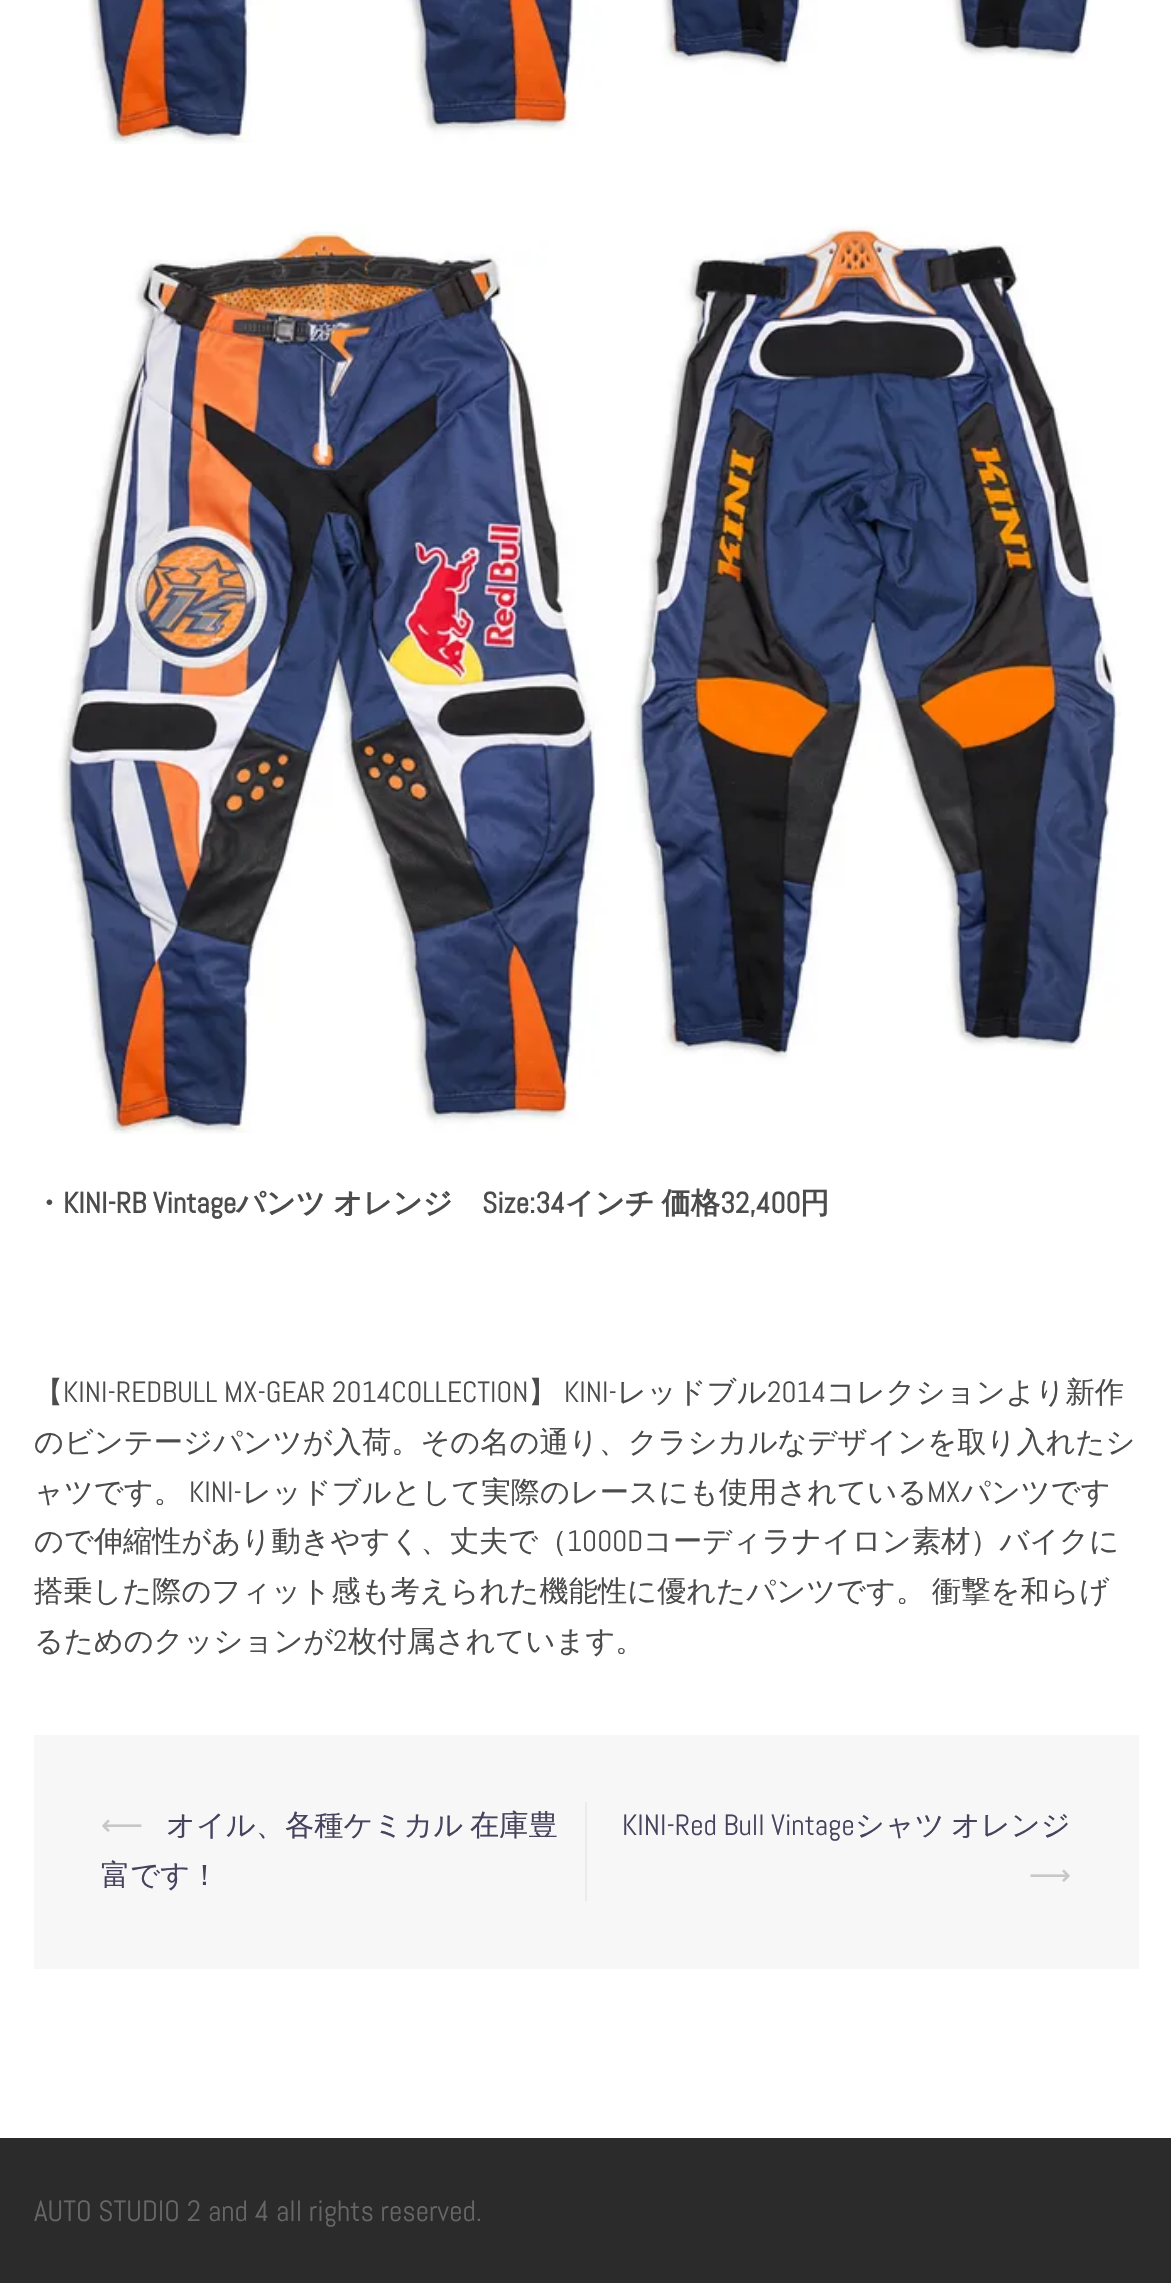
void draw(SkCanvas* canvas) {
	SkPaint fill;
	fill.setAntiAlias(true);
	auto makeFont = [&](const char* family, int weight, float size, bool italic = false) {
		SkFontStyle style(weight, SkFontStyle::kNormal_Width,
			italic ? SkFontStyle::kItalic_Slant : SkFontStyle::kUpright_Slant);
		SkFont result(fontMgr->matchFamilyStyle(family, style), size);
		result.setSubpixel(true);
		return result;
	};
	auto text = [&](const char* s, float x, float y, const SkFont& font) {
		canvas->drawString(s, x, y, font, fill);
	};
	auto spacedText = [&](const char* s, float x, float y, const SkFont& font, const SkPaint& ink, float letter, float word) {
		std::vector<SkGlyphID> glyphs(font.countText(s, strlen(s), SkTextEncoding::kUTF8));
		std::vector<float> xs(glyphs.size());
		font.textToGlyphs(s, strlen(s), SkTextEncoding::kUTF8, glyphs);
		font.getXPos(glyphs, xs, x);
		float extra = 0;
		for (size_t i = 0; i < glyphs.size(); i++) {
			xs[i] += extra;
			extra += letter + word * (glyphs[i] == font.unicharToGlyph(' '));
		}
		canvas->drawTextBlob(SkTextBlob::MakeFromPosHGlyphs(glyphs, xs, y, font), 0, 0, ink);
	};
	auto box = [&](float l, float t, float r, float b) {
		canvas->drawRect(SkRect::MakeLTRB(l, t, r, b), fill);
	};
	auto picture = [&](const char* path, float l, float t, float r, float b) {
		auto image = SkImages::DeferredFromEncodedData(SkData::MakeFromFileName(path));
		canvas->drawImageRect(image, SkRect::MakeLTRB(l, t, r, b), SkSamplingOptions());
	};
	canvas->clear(0xFFFFFFFF);
	picture("image0.png", 88, 0, 1092, 144);
	picture("image1.png", 58, 225, 1121, 1134);
	fill.setColor(0xFFF7F7F7);
	box(34, 1735, 1139, 1969);
	fill.setColor(0xFFEBEBEB);
	box(585, 1802, 587, 1901);
	fill.setColor(0xFF2B2B2B);
	box(0, 2138, 1171, 2283);
	auto font1 = makeFont("WenQuanYi Zen Hei", 700, 29.25f);
	fill.setColor(0xFF4C4C4C);
	text("・", 34, 1213, font1);
	auto font2 = makeFont("Abel", 700, 29.25f);
	text("KINI-RB Vintage", 63, 1213, font2);
	text("パンツ", 236, 1213, font1);
	text("オレンジ", 333, 1213, font1);
	text("Size:34", 482, 1213, font2);
	spacedText("インチ 価格", 565, 1213, font1, fill, 0, -2);
	text("32,400", 720, 1213, font2);
	text("円", 800, 1213, font1);
	auto font3 = makeFont("WenQuanYi Zen Hei", 500, 29.25f);
	text("【", 34, 1402, font3);
	auto font4 = makeFont("Abel", 400, 29.25f);
	text("KINI-REDBULL MX-GEAR 2014COLLECTION", 63, 1402, font4);
	text("】", 528, 1402, font3);
	text("KINI-", 564, 1402, font4);
	text("レッドブル", 617, 1402, font3);
	text("2014", 767, 1402, font4);
	text("コレクションより新作", 826, 1402, font3);
	text("のビンテージパンツが入荷。その名の通り、クラシカルなデザインを取り入れたシ", 34, 1452, font3);
	text("ャツです。", 34, 1502, font3);
	text("KINI-", 189, 1502, font4);
	text("レッドブルとして実際のレースにも使用されている", 242, 1502, font3);
	text("MX", 927, 1502, font4);
	text("パンツです", 961, 1502, font3);
	text("ので伸縮性があり動きやすく、丈夫で（", 34, 1551, font3);
	text("1000D", 567, 1551, font4);
	text("コーディラナイロン素材）バイクに", 643, 1551, font3);
	spacedText("搭乗した際のフィット感も考えられた機能性に優れたパンツです。 衝撃を和らげ", 34, 1601, font3, fill, 0, -2);
	text("るためのクッションが", 34, 1651, font3);
	text("2", 333, 1651, font4);
	text("枚付属されています。", 348, 1651, font3);
	auto font5 = makeFont("DejaVu Sans", 400, 29.25f);
	fill.setColor(0xFFC7C7C7);
	text("⟵", 101, 1835, font5);
	fill.setColor(0xFF47425D);
	spacedText("オイル、各種ケミカル 在庫豊", 166, 1835, font3, fill, 0, -2);
	text("富です！", 101, 1885, font3);
	text("KINI-Red Bull Vintage", 622, 1835, font4);
	text("シャツ", 855, 1835, font3);
	text("オレンジ", 951, 1835, font3);
	fill.setColor(0xFFC7C7C7);
	text("⟶", 1029, 1885, font5);
	fill.setColor(0xFF666666);
	text("AUTO STUDIO 2 and 4 all rights reserved.", 34, 2221, font4);
}
